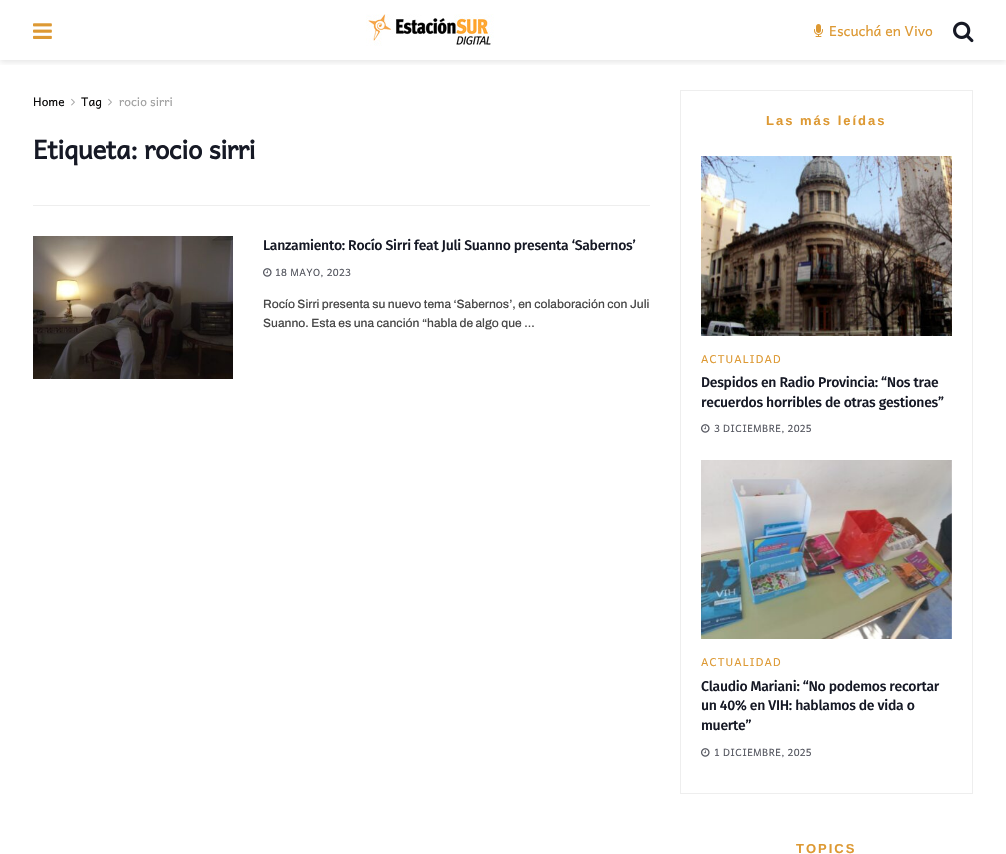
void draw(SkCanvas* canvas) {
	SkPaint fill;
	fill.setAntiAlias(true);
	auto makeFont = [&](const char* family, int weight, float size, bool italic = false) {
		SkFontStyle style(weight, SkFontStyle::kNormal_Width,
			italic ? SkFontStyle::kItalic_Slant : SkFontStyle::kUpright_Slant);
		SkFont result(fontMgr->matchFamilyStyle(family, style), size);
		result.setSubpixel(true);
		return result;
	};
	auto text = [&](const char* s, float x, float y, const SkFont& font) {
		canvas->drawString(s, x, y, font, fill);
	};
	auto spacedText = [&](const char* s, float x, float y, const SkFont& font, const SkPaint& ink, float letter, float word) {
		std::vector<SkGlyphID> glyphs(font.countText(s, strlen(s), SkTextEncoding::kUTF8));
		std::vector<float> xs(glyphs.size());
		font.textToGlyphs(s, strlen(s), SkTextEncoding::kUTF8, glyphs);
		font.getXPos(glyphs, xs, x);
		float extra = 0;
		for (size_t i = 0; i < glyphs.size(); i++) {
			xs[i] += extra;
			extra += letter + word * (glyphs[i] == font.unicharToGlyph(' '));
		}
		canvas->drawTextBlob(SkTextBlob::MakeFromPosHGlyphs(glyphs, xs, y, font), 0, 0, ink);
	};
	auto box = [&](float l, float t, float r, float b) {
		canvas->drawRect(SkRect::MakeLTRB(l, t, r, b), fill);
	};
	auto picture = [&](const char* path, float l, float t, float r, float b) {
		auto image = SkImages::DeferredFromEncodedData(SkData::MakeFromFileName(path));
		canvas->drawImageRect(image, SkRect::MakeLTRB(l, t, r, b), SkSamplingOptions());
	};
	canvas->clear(0xFFFFFFFF);
	canvas->save();
	canvas->clipRect(SkRect::MakeLTRB(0, 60, 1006, 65));
	fill.setColor(0x1A000000);
	fill.setMaskFilter(SkMaskFilter::MakeBlur(kNormal_SkBlurStyle, 3));
	canvas->drawRect(SkRect::MakeLTRB(0, 2, 1006, 62), fill);
	fill.setMaskFilter(nullptr);
	canvas->restore();
	picture("image0.png", 33, 23, 52, 39);
	picture("image1.png", 366, 14, 494, 46);
	picture("image2.png", 814, 24, 823, 37);
	picture("image3.png", 953, 21, 974, 43);
	picture("image4.png", 71, 98, 75, 106);
	picture("image4.png", 108, 98, 112, 106);
	fill.setColor(0xFFEEEEEE);
	box(33, 205, 650, 206);
	picture("image5.png", 33, 236, 233, 379);
	picture("image6.png", 263, 268, 272, 277);
	fill.setStyle(SkPaint::kStroke_Style);
	fill.setStrokeWidth(1);
	canvas->drawRect(SkRect::MakeLTRB(680.5f, 90.5f, 972.5f, 793.5f), fill);
	picture("image7.png", 701, 156, 952, 336);
	picture("image6.png", 701, 424, 710, 433);
	picture("image8.png", 701, 460, 952, 639);
	picture("image6.png", 701, 748, 710, 757);
	auto font1 = makeFont("Andika", 400, 14);
	fill.setStyle(SkPaint::kFill_Style);
	fill.setColor(0xFFDD9933);
	text("Escuchá en Vivo", 829, 36, font1);
	auto font2 = makeFont("Andika", 400, 12);
	fill.setColor(0xFF0A0909);
	text("Home", 33, 106, font2);
	text("Tag", 81, 106, font2);
	fill.setColor(0xFFA0A0A0);
	text("rocio sirri", 119, 106, font2);
	auto font3 = makeFont("Andika", 700, 26);
	fill.setColor(0xFF161925);
	spacedText("Etiqueta: rocio sirri", 33, 159, font3, fill, -0.5f, 0);
	auto font4 = makeFont("Fira Sans", 500, 14);
	spacedText("Lanzamiento: Rocío Sirri feat Juli Suanno presenta ‘Sabernos’", 263, 250, font4, fill, -0.28f, 0);
	auto font5 = makeFont("Andika", 400, 10);
	fill.setColor(0xFF555760);
	spacedText("18 MAYO, 2023", 275, 276, font5, fill, 0.25f, 0);
	auto font6 = makeFont("Archivo", 500, 12);
	fill.setColor(0xFF494949);
	text("Rocío Sirri presenta su nuevo tema ‘Sabernos’, en colaboración con Juli", 263, 308, font6);
	text("Suanno. Esta es una canción “habla de algo que ...", 263, 327, font6);
	auto font7 = makeFont("Liberation Sans", 700, 13);
	fill.setColor(0xFFDD9933);
	spacedText("Las más leídas", 766, 125, font7, fill, 2, 0);
	auto font8 = makeFont("Andika", 400, 11);
	spacedText("ACTUALIDAD", 701, 363, font8, fill, 1, 0);
	fill.setColor(0xFF161925);
	spacedText("Despidos en Radio Provincia: “Nos trae", 701, 387, font4, fill, -0.28f, 0);
	spacedText("recuerdos horribles de otras gestiones”", 701, 407, font4, fill, -0.28f, 0);
	fill.setColor(0xFF555760);
	spacedText("3 DICIEMBRE, 2025", 714, 432, font5, fill, 0.25f, 0);
	fill.setColor(0xFFDD9933);
	spacedText("ACTUALIDAD", 701, 666, font8, fill, 1, 0);
	fill.setColor(0xFF161925);
	spacedText("Claudio Mariani: “No podemos recortar", 701, 691, font4, fill, -0.28f, 0);
	spacedText("un 40% en VIH: hablamos de vida o", 701, 710, font4, fill, -0.28f, 0);
	spacedText("muerte”", 701, 730, font4, fill, -0.28f, 0);
	fill.setColor(0xFF555760);
	spacedText("1 DICIEMBRE, 2025", 714, 756, font5, fill, 0.25f, 0);
	fill.setColor(0xFFDD9933);
	spacedText("TOPICS", 796, 853, font7, fill, 2, 0);
}
